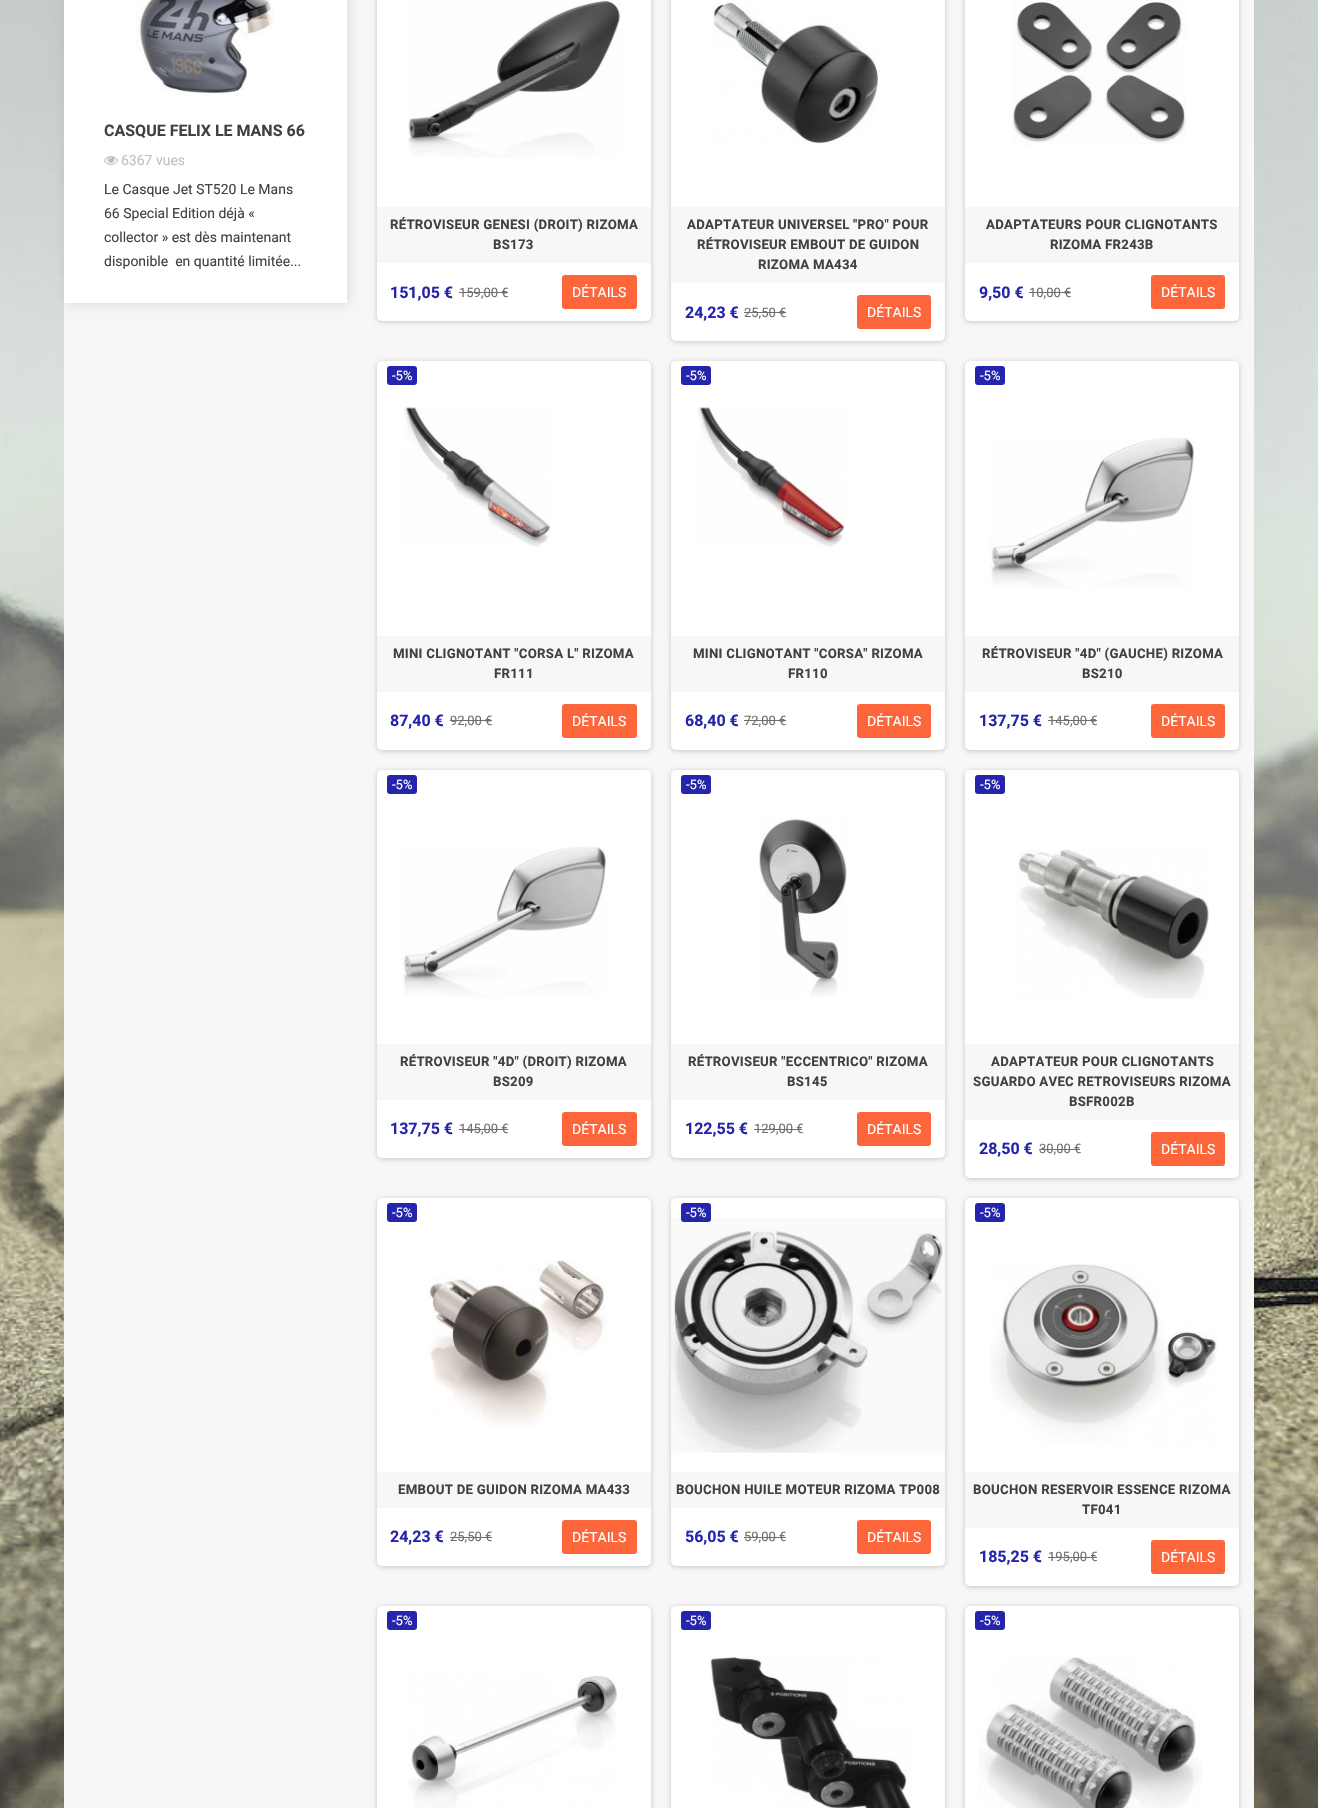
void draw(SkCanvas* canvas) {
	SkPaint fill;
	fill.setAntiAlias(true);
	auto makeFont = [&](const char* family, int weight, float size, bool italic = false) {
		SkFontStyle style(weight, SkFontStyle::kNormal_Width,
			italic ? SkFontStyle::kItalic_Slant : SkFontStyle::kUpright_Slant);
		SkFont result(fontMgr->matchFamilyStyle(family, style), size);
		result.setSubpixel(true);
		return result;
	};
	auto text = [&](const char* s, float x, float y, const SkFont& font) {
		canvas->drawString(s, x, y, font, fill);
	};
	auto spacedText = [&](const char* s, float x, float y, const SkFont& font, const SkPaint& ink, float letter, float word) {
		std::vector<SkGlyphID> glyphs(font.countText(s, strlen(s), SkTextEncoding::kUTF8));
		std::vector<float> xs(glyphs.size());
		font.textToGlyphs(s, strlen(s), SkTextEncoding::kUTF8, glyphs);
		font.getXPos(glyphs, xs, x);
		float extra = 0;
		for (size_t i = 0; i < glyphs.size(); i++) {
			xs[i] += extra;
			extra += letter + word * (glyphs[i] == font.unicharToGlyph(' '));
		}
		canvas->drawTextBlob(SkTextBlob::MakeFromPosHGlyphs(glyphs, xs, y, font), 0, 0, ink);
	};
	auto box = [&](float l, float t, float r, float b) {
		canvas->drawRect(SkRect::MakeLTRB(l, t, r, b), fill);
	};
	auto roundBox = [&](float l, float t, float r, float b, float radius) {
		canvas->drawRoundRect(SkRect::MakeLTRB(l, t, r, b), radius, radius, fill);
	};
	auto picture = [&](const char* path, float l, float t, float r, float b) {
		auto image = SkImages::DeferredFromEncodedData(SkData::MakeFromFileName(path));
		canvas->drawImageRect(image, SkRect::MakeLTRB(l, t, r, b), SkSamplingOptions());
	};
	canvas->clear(0xFFFFFFFF);
	picture("image0.png", 0, 0, 1318, 1808);
	fill.setColor(0xFFF7F7F7);
	box(64, 0, 1254, 1808);
	fill.setColor(0x1A000000);
	fill.setMaskFilter(SkMaskFilter::MakeBlur(kNormal_SkBlurStyle, 5.5f));
	canvas->drawRect(SkRect::MakeLTRB(66, -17, 349, 305), fill);
	fill.setMaskFilter(nullptr);
	fill.setColor(0xFFFFFFFF);
	box(64, 0, 347, 303);
	picture("image1.png", 135, 0, 274, 96);
	picture("image2.png", 104, 156, 118, 165);
	fill.setColor(0x33000000);
	fill.setMaskFilter(SkMaskFilter::MakeBlur(kNormal_SkBlurStyle, 2.5f));
	canvas->drawRoundRect(SkRect::MakeLTRB(377, -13, 651, 322), 5, 5, fill);
	fill.setMaskFilter(nullptr);
	fill.setColor(0xFFFFFFFF);
	roundBox(377, -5, 651, 321, 5);
	picture("image3.png", 407, 0, 621, 158);
	fill.setColor(0xFFF7F7F7);
	box(377, 207, 651, 263);
	fill.setColor(0xFF6F6F6F);
	box(459, 292, 508, 293);
	fill.setColor(0xFFFD653B);
	roundBox(562, 275, 637, 309, 3);
	fill.setColor(0x33000000);
	fill.setMaskFilter(SkMaskFilter::MakeBlur(kNormal_SkBlurStyle, 2.5f));
	canvas->drawRoundRect(SkRect::MakeLTRB(671, -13, 945, 342), 5, 5, fill);
	fill.setMaskFilter(nullptr);
	fill.setColor(0xFFFFFFFF);
	roundBox(671, -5, 945, 341, 5);
	picture("image4.png", 711, 2, 881, 146);
	fill.setColor(0xFFF7F7F7);
	box(671, 207, 945, 283);
	fill.setColor(0xFF6F6F6F);
	box(744, 312, 786, 313);
	fill.setColor(0xFFFD653B);
	roundBox(857, 295, 931, 329, 3);
	fill.setColor(0x33000000);
	fill.setMaskFilter(SkMaskFilter::MakeBlur(kNormal_SkBlurStyle, 2.5f));
	canvas->drawRoundRect(SkRect::MakeLTRB(965, -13, 1239, 322), 5, 5, fill);
	fill.setMaskFilter(nullptr);
	fill.setColor(0xFFFFFFFF);
	roundBox(965, -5, 1239, 321, 5);
	picture("image5.png", 1012, 0, 1186, 146);
	fill.setColor(0xFFF7F7F7);
	box(965, 207, 1239, 263);
	fill.setColor(0xFF6F6F6F);
	box(1029, 292, 1071, 293);
	fill.setColor(0xFFFD653B);
	roundBox(1151, 275, 1225, 309, 3);
	fill.setColor(0x33000000);
	fill.setMaskFilter(SkMaskFilter::MakeBlur(kNormal_SkBlurStyle, 2.5f));
	canvas->drawRoundRect(SkRect::MakeLTRB(377, 362, 651, 751), 5, 5, fill);
	fill.setMaskFilter(nullptr);
	fill.setColor(0xFFFFFFFF);
	roundBox(377, 361, 651, 750, 5);
	fill.setColor(0xFF2424AD);
	roundBox(387, 366, 417, 385, 3);
	picture("image6.png", 403, 407, 551, 547);
	fill.setColor(0xFFF7F7F7);
	box(377, 636, 651, 692);
	fill.setColor(0xFF6F6F6F);
	box(450, 720, 492, 721);
	fill.setColor(0xFFFD653B);
	roundBox(562, 704, 637, 738, 3);
	fill.setColor(0x33000000);
	fill.setMaskFilter(SkMaskFilter::MakeBlur(kNormal_SkBlurStyle, 2.5f));
	canvas->drawRoundRect(SkRect::MakeLTRB(671, 362, 945, 751), 5, 5, fill);
	fill.setMaskFilter(nullptr);
	fill.setColor(0xFFFFFFFF);
	roundBox(671, 361, 945, 750, 5);
	fill.setColor(0xFF2424AD);
	roundBox(681, 366, 711, 385, 3);
	picture("image7.png", 697, 407, 845, 547);
	fill.setColor(0xFFF7F7F7);
	box(671, 636, 945, 692);
	fill.setColor(0xFF6F6F6F);
	box(744, 720, 786, 721);
	fill.setColor(0xFFFD653B);
	roundBox(857, 704, 931, 738, 3);
	fill.setColor(0x33000000);
	fill.setMaskFilter(SkMaskFilter::MakeBlur(kNormal_SkBlurStyle, 2.5f));
	canvas->drawRoundRect(SkRect::MakeLTRB(965, 362, 1239, 751), 5, 5, fill);
	fill.setMaskFilter(nullptr);
	fill.setColor(0xFFFFFFFF);
	roundBox(965, 361, 1239, 750, 5);
	fill.setColor(0xFF2424AD);
	roundBox(975, 366, 1005, 385, 3);
	picture("image8.png", 989, 437, 1194, 589);
	fill.setColor(0xFFF7F7F7);
	box(965, 636, 1239, 692);
	fill.setColor(0xFF6F6F6F);
	box(1048, 720, 1097, 721);
	fill.setColor(0xFFFD653B);
	roundBox(1151, 704, 1225, 738, 3);
	fill.setColor(0x33000000);
	fill.setMaskFilter(SkMaskFilter::MakeBlur(kNormal_SkBlurStyle, 2.5f));
	canvas->drawRoundRect(SkRect::MakeLTRB(377, 771, 651, 1159), 5, 5, fill);
	fill.setMaskFilter(nullptr);
	fill.setColor(0xFFFFFFFF);
	roundBox(377, 770, 651, 1158, 5);
	fill.setColor(0xFF2424AD);
	roundBox(387, 775, 417, 794, 3);
	picture("image9.png", 401, 846, 606, 997);
	fill.setColor(0xFFF7F7F7);
	box(377, 1044, 651, 1100);
	fill.setColor(0xFF6F6F6F);
	box(459, 1129, 508, 1130);
	fill.setColor(0xFFFD653B);
	roundBox(562, 1112, 637, 1146, 3);
	fill.setColor(0x33000000);
	fill.setMaskFilter(SkMaskFilter::MakeBlur(kNormal_SkBlurStyle, 2.5f));
	canvas->drawRoundRect(SkRect::MakeLTRB(671, 771, 945, 1159), 5, 5, fill);
	fill.setMaskFilter(nullptr);
	fill.setColor(0xFFFFFFFF);
	roundBox(671, 770, 945, 1158, 5);
	fill.setColor(0xFF2424AD);
	roundBox(681, 775, 711, 794, 3);
	picture("image10.png", 759, 818, 847, 997);
	fill.setColor(0xFFF7F7F7);
	box(671, 1044, 945, 1100);
	fill.setColor(0xFF6F6F6F);
	box(754, 1129, 802, 1130);
	fill.setColor(0xFFFD653B);
	roundBox(857, 1112, 931, 1146, 3);
	fill.setColor(0x33000000);
	fill.setMaskFilter(SkMaskFilter::MakeBlur(kNormal_SkBlurStyle, 2.5f));
	canvas->drawRoundRect(SkRect::MakeLTRB(965, 771, 1239, 1179), 5, 5, fill);
	fill.setMaskFilter(nullptr);
	fill.setColor(0xFFFFFFFF);
	roundBox(965, 770, 1239, 1178, 5);
	fill.setColor(0xFF2424AD);
	roundBox(975, 775, 1005, 794, 3);
	picture("image11.png", 1015, 849, 1209, 999);
	fill.setColor(0xFFF7F7F7);
	box(965, 1044, 1239, 1120);
	fill.setColor(0xFF6F6F6F);
	box(1039, 1149, 1080, 1150);
	fill.setColor(0xFFFD653B);
	roundBox(1151, 1132, 1225, 1166, 3);
	fill.setColor(0x33000000);
	fill.setMaskFilter(SkMaskFilter::MakeBlur(kNormal_SkBlurStyle, 2.5f));
	canvas->drawRoundRect(SkRect::MakeLTRB(377, 1199, 651, 1567), 5, 5, fill);
	fill.setMaskFilter(nullptr);
	fill.setColor(0xFFFFFFFF);
	roundBox(377, 1198, 651, 1566, 5);
	fill.setColor(0xFF2424AD);
	roundBox(387, 1203, 417, 1222, 3);
	picture("image12.png", 425, 1260, 608, 1429);
	fill.setColor(0xFFF7F7F7);
	box(377, 1472, 651, 1508);
	fill.setColor(0xFF6F6F6F);
	box(450, 1537, 492, 1538);
	fill.setColor(0xFFFD653B);
	roundBox(562, 1520, 637, 1554, 3);
	fill.setColor(0x33000000);
	fill.setMaskFilter(SkMaskFilter::MakeBlur(kNormal_SkBlurStyle, 2.5f));
	canvas->drawRoundRect(SkRect::MakeLTRB(671, 1199, 945, 1567), 5, 5, fill);
	fill.setMaskFilter(nullptr);
	fill.setColor(0xFFFFFFFF);
	roundBox(671, 1198, 945, 1566, 5);
	picture("image13.png", 671, 1218, 945, 1453);
	fill.setColor(0xFF2424AD);
	roundBox(681, 1203, 711, 1222, 3);
	fill.setColor(0xFFF7F7F7);
	box(671, 1472, 945, 1508);
	fill.setColor(0xFF6F6F6F);
	box(744, 1537, 786, 1538);
	fill.setColor(0xFFFD653B);
	roundBox(857, 1520, 931, 1554, 3);
	fill.setColor(0x33000000);
	fill.setMaskFilter(SkMaskFilter::MakeBlur(kNormal_SkBlurStyle, 2.5f));
	canvas->drawRoundRect(SkRect::MakeLTRB(965, 1199, 1239, 1587), 5, 5, fill);
	fill.setMaskFilter(nullptr);
	fill.setColor(0xFFFFFFFF);
	roundBox(965, 1198, 1239, 1586, 5);
	fill.setColor(0xFF2424AD);
	roundBox(975, 1203, 1005, 1222, 3);
	picture("image14.png", 990, 1264, 1217, 1446);
	fill.setColor(0xFFF7F7F7);
	box(965, 1472, 1239, 1528);
	fill.setColor(0xFF6F6F6F);
	box(1048, 1557, 1097, 1558);
	fill.setColor(0xFFFD653B);
	roundBox(1151, 1540, 1225, 1574, 3);
	fill.setColor(0x33000000);
	fill.setMaskFilter(SkMaskFilter::MakeBlur(kNormal_SkBlurStyle, 2.5f));
	canvas->drawRoundRect(SkRect::MakeLTRB(377, 1607, 651, 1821), 5, 5, fill);
	fill.setMaskFilter(nullptr);
	fill.setColor(0xFFFFFFFF);
	roundBox(377, 1606, 651, 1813, 5);
	fill.setColor(0xFF2424AD);
	roundBox(387, 1611, 417, 1630, 3);
	picture("image15.png", 408, 1675, 617, 1808);
	fill.setColor(0x33000000);
	fill.setMaskFilter(SkMaskFilter::MakeBlur(kNormal_SkBlurStyle, 2.5f));
	canvas->drawRoundRect(SkRect::MakeLTRB(671, 1607, 945, 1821), 5, 5, fill);
	fill.setMaskFilter(nullptr);
	fill.setColor(0xFFFFFFFF);
	roundBox(671, 1606, 945, 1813, 5);
	fill.setColor(0xFF2424AD);
	roundBox(681, 1611, 711, 1630, 3);
	picture("image16.png", 710, 1655, 912, 1808);
	fill.setColor(0x33000000);
	fill.setMaskFilter(SkMaskFilter::MakeBlur(kNormal_SkBlurStyle, 2.5f));
	canvas->drawRoundRect(SkRect::MakeLTRB(965, 1607, 1239, 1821), 5, 5, fill);
	fill.setMaskFilter(nullptr);
	fill.setColor(0xFFFFFFFF);
	roundBox(965, 1606, 1239, 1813, 5);
	fill.setColor(0xFF2424AD);
	roundBox(975, 1611, 1005, 1630, 3);
	picture("image17.png", 978, 1657, 1203, 1808);
	auto font1 = makeFont("Roboto", 700, 16);
	fill.setColor(0xFF414141);
	text("CASQUE FELIX LE MANS 66", 104, 136, font1);
	auto font2 = makeFont("Roboto", 400, 14);
	fill.setColor(0xFFBFBFBF);
	text("6367 vues", 121, 165, font2);
	fill.setColor(0xFF414141);
	text("Le Casque Jet ST520 Le Mans", 104, 194, font2);
	text("66 Special Edition déjà «", 104, 218, font2);
	text("collector » est dès maintenant", 104, 242, font2);
	text("disponible  en quantité limitée...", 104, 266, font2);
	auto font3 = makeFont("Roboto", 700, 13.25f);
	spacedText("RÉTROVISEUR GENESI (DROIT) RIZOMA", 390, 229, font3, fill, 0.25f, 0);
	spacedText("BS173", 493, 249, font3, fill, 0.25f, 0);
	fill.setColor(0xFF2424AD);
	text("151,05 €", 390, 298, font1);
	auto font4 = makeFont("Roboto", 400, 13);
	fill.setColor(0xFF6F6F6F);
	text("159,00 €", 459, 297, font4);
	fill.setColor(0xFFFFFFFF);
	text("DÉTAILS", 572, 297, font2);
	fill.setColor(0xFF414141);
	spacedText("ADAPTATEUR UNIVERSEL \"PRO\" POUR", 687, 229, font3, fill, 0.25f, 0);
	spacedText("RÉTROVISEUR EMBOUT DE GUIDON", 697, 249, font3, fill, 0.25f, 0);
	spacedText("RIZOMA MA434", 758, 269, font3, fill, 0.25f, 0);
	fill.setColor(0xFF2424AD);
	text("24,23 €", 685, 318, font1);
	fill.setColor(0xFF6F6F6F);
	text("25,50 €", 744, 317, font4);
	fill.setColor(0xFFFFFFFF);
	text("DÉTAILS", 867, 317, font2);
	fill.setColor(0xFF414141);
	spacedText("ADAPTATEURS POUR CLIGNOTANTS", 986, 229, font3, fill, 0.25f, 0);
	spacedText("RIZOMA FR243B", 1050, 249, font3, fill, 0.25f, 0);
	fill.setColor(0xFF2424AD);
	text("9,50 €", 979, 298, font1);
	fill.setColor(0xFF6F6F6F);
	text("10,00 €", 1029, 297, font4);
	fill.setColor(0xFFFFFFFF);
	text("DÉTAILS", 1161, 297, font2);
	text("-5%", 392, 380, font4);
	fill.setColor(0xFF414141);
	spacedText("MINI CLIGNOTANT \"CORSA L\" RIZOMA", 393, 658, font3, fill, 0.25f, 0);
	spacedText("FR111", 494, 678, font3, fill, 0.25f, 0);
	fill.setColor(0xFF2424AD);
	text("87,40 €", 390, 726, font1);
	fill.setColor(0xFF6F6F6F);
	text("92,00 €", 450, 725, font4);
	fill.setColor(0xFFFFFFFF);
	text("DÉTAILS", 572, 726, font2);
	text("-5%", 686, 380, font4);
	fill.setColor(0xFF414141);
	spacedText("MINI CLIGNOTANT \"CORSA\" RIZOMA", 693, 658, font3, fill, 0.25f, 0);
	spacedText("FR110", 788, 678, font3, fill, 0.25f, 0);
	fill.setColor(0xFF2424AD);
	text("68,40 €", 685, 726, font1);
	fill.setColor(0xFF6F6F6F);
	text("72,00 €", 744, 725, font4);
	fill.setColor(0xFFFFFFFF);
	text("DÉTAILS", 867, 726, font2);
	text("-5%", 980, 380, font4);
	fill.setColor(0xFF414141);
	spacedText("RÉTROVISEUR \"4D\" (GAUCHE) RIZOMA", 982, 658, font3, fill, 0.25f, 0);
	spacedText("BS210", 1082, 678, font3, fill, 0.25f, 0);
	fill.setColor(0xFF2424AD);
	text("137,75 €", 979, 726, font1);
	fill.setColor(0xFF6F6F6F);
	text("145,00 €", 1048, 725, font4);
	fill.setColor(0xFFFFFFFF);
	text("DÉTAILS", 1161, 726, font2);
	text("-5%", 392, 789, font4);
	fill.setColor(0xFF414141);
	spacedText("RÉTROVISEUR \"4D\" (DROIT) RIZOMA", 400, 1066, font3, fill, 0.25f, 0);
	spacedText("BS209", 493, 1086, font3, fill, 0.25f, 0);
	fill.setColor(0xFF2424AD);
	text("137,75 €", 390, 1134, font1);
	fill.setColor(0xFF6F6F6F);
	text("145,00 €", 459, 1133, font4);
	fill.setColor(0xFFFFFFFF);
	text("DÉTAILS", 572, 1134, font2);
	text("-5%", 686, 789, font4);
	fill.setColor(0xFF414141);
	spacedText("RÉTROVISEUR \"ECCENTRICO\" RIZOMA", 688, 1066, font3, fill, 0.25f, 0);
	spacedText("BS145", 787, 1086, font3, fill, 0.25f, 0);
	fill.setColor(0xFF2424AD);
	text("122,55 €", 685, 1134, font1);
	fill.setColor(0xFF6F6F6F);
	text("129,00 €", 754, 1133, font4);
	fill.setColor(0xFFFFFFFF);
	text("DÉTAILS", 867, 1134, font2);
	text("-5%", 980, 789, font4);
	fill.setColor(0xFF414141);
	spacedText("ADAPTATEUR POUR CLIGNOTANTS", 991, 1066, font3, fill, 0.25f, 0);
	spacedText("SGUARDO AVEC RETROVISEURS RIZOMA", 973, 1086, font3, fill, 0.25f, 0);
	spacedText("BSFR002B", 1069, 1106, font3, fill, 0.25f, 0);
	fill.setColor(0xFF2424AD);
	text("28,50 €", 979, 1154, font1);
	fill.setColor(0xFF6F6F6F);
	text("30,00 €", 1039, 1153, font4);
	fill.setColor(0xFFFFFFFF);
	text("DÉTAILS", 1161, 1154, font2);
	text("-5%", 392, 1217, font4);
	fill.setColor(0xFF414141);
	spacedText("EMBOUT DE GUIDON RIZOMA MA433", 398, 1494, font3, fill, 0.25f, 0);
	fill.setColor(0xFF2424AD);
	text("24,23 €", 390, 1542, font1);
	fill.setColor(0xFF6F6F6F);
	text("25,50 €", 450, 1541, font4);
	fill.setColor(0xFFFFFFFF);
	text("DÉTAILS", 572, 1542, font2);
	text("-5%", 686, 1217, font4);
	fill.setColor(0xFF414141);
	spacedText("BOUCHON HUILE MOTEUR RIZOMA TP008", 676, 1494, font3, fill, 0.25f, 0);
	fill.setColor(0xFF2424AD);
	text("56,05 €", 685, 1542, font1);
	fill.setColor(0xFF6F6F6F);
	text("59,00 €", 744, 1541, font4);
	fill.setColor(0xFFFFFFFF);
	text("DÉTAILS", 867, 1542, font2);
	text("-5%", 980, 1217, font4);
	fill.setColor(0xFF414141);
	spacedText("BOUCHON RESERVOIR ESSENCE RIZOMA", 973, 1494, font3, fill, 0.25f, 0);
	spacedText("TF041", 1082, 1514, font3, fill, 0.25f, 0);
	fill.setColor(0xFF2424AD);
	text("185,25 €", 979, 1562, font1);
	fill.setColor(0xFF6F6F6F);
	text("195,00 €", 1048, 1561, font4);
	fill.setColor(0xFFFFFFFF);
	text("DÉTAILS", 1161, 1562, font2);
	text("-5%", 392, 1625, font4);
	text("-5%", 686, 1625, font4);
	text("-5%", 980, 1625, font4);
}
